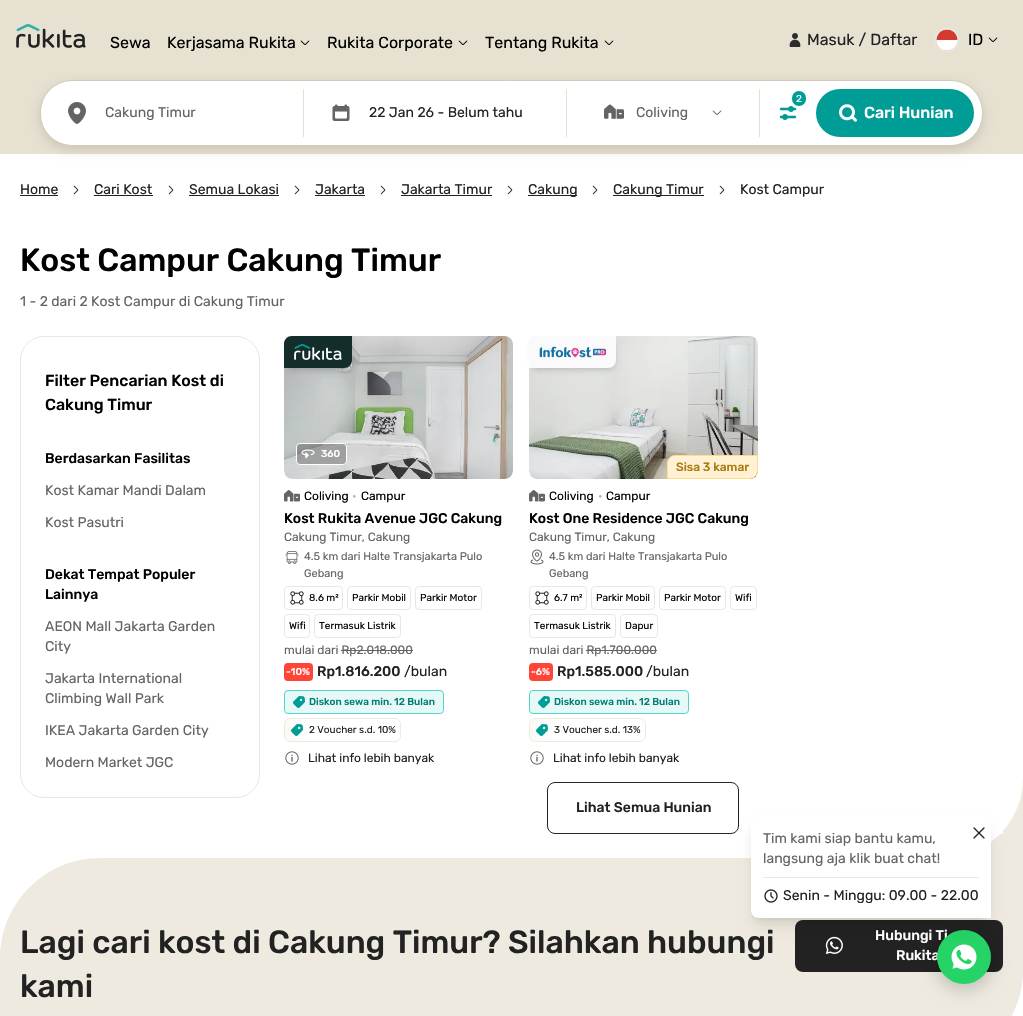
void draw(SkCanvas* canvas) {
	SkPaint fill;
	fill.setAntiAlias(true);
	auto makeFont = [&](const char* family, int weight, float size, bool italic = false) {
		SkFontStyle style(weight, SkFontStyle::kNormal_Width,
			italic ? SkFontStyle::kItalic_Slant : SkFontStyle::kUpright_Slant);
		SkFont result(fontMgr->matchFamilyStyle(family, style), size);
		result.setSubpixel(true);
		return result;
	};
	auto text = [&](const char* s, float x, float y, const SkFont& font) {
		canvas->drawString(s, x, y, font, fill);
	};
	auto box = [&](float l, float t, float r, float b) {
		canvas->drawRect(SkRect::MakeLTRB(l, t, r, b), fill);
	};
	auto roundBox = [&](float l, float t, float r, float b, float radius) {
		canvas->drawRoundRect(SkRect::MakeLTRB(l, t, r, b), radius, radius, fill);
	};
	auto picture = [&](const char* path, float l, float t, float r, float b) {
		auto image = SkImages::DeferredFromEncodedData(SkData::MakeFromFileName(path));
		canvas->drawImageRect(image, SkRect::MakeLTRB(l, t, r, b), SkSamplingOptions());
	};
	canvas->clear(0xFFFFFFFF);
	fill.setColor(0xFFE7E1D1);
	box(0, 72, 1023, 154);
	fill.setColor(0x1F000000);
	fill.setMaskFilter(SkMaskFilter::MakeBlur(kNormal_SkBlurStyle, 6));
	canvas->drawRoundRect(SkRect::MakeLTRB(40, 84, 983, 150), 32, 32, fill);
	fill.setMaskFilter(nullptr);
	fill.setColor(0xFFE7E1D1);
	box(0, 0, 1023, 72);
	picture("image0.png", 16, 24, 86, 48);
	picture("image1.png", 300, 40, 310, 45);
	picture("image1.png", 458, 40, 468, 45);
	picture("image1.png", 604, 40, 614, 45);
	picture("image2.png", 789, 33, 801, 47);
	picture("image3.png", 935, 28, 959, 52);
	picture("image1.png", 988, 37, 998, 42);
	fill.setColor(0xFFFFFFFF);
	canvas->drawRoundRect(SkRect::MakeLTRB(40.5f, 80.5f, 982.5f, 145.5f), 31.5f, 31.5f, fill);
	fill.setStyle(SkPaint::kStroke_Style);
	fill.setStrokeWidth(1);
	fill.setColor(0xFFD0CBBC);
	canvas->drawRoundRect(SkRect::MakeLTRB(40.5f, 80.5f, 982.5f, 145.5f), 31.5f, 31.5f, fill);
	fill.setStyle(SkPaint::kFill_Style);
	fill.setColor(0xFFE7E1D1);
	box(303, 89, 304, 137);
	box(566, 89, 567, 137);
	box(759, 89, 760, 137);
	fill.setColor(0xFF009C96);
	roundBox(792, 91, 806, 106, 7);
	picture("image4.png", 779, 106, 797, 120);
	picture("image5.png", 68, 102, 86, 124);
	picture("image6.png", 332, 104, 350, 121);
	picture("image7.png", 604, 104, 624, 119);
	picture("image8.png", 712, 110, 722, 115);
	roundBox(816, 89, 974, 137, 24);
	picture("image9.png", 839, 104, 857, 122);
	fill.setColor(0xFF222222);
	box(20, 195, 58, 196);
	picture("image10.png", 73, 185, 79, 195);
	box(94, 195, 153, 196);
	picture("image10.png", 168, 185, 174, 195);
	box(189, 195, 279, 196);
	picture("image10.png", 294, 185, 300, 195);
	box(315, 195, 365, 196);
	picture("image10.png", 380, 185, 386, 195);
	box(401, 195, 492, 196);
	picture("image10.png", 507, 185, 513, 195);
	box(528, 195, 577, 196);
	picture("image10.png", 592, 185, 598, 195);
	box(613, 195, 704, 196);
	picture("image10.png", 719, 185, 725, 195);
	fill.setColor(0xFFEEEADF);
	box(991, 778, 1023, 858);
	fill.setColor(0xFFFFFFFF);
	canvas->drawPath(SkPathBuilder().moveTo(0, 208).lineTo(1023, 208).lineTo(1023, 778).cubicTo(1023, 822, 987, 858, 943, 858).lineTo(0, 858).close().detach(), fill);
	fill.setStyle(SkPaint::kStroke_Style);
	fill.setColor(0xFFE7E7E7);
	canvas->drawRoundRect(SkRect::MakeLTRB(20.5f, 336.5f, 259.5f, 797.5f), 23.5f, 23.5f, fill);
	picture("image12.png", 284, 336, 513, 479);
	fill.setStyle(SkPaint::kFill_Style);
	fill.setColor(0x1A000000);
	fill.setMaskFilter(SkMaskFilter::MakeBlur(kNormal_SkBlurStyle, 2));
	canvas->drawRoundRect(SkRect::MakeLTRB(286, 340, 350, 368), 6, 6, fill);
	fill.setMaskFilter(nullptr);
	canvas->save();
	canvas->clipPath(SkPathBuilder().moveTo(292, 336).lineTo(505, 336).cubicTo(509.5f, 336, 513, 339.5f, 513, 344).lineTo(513, 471).cubicTo(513, 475.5f, 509.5f, 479, 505, 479).lineTo(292, 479).cubicTo(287.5f, 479, 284, 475.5f, 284, 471).lineTo(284, 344).cubicTo(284, 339.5f, 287.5f, 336, 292, 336).close().detach(), true);
	fill.setMaskFilter(SkMaskFilter::MakeBlur(kNormal_SkBlurStyle, 3));
	canvas->drawRoundRect(SkRect::MakeLTRB(285, 341, 351, 371), 7, 7, fill);
	fill.setMaskFilter(nullptr);
	canvas->restore();
	fill.setColor(0xFF132D2B);
	canvas->drawPath(SkPathBuilder().moveTo(292, 336).lineTo(352, 336).lineTo(352, 360).cubicTo(352, 364.5f, 348.5f, 368, 344, 368).lineTo(284, 368).lineTo(284, 344).cubicTo(284, 339.5f, 287.5f, 336, 292, 336).close().detach(), fill);
	picture("image11.png", 294, 344, 342, 360);
	fill.setColor(0x4D222222);
	canvas->drawRoundRect(SkRect::MakeLTRB(296.5f, 443.5f, 346.5f, 464.5f), 3.5f, 3.5f, fill);
	fill.setStyle(SkPaint::kStroke_Style);
	fill.setColor(0xFFFFFFFF);
	canvas->drawRoundRect(SkRect::MakeLTRB(296.5f, 443.5f, 346.5f, 464.5f), 3.5f, 3.5f, fill);
	picture("image13.png", 301, 449, 315, 459);
	picture("image14.png", 284, 490, 300, 502);
	picture("image15.png", 285, 551, 299, 564);
	fill.setColor(0xFFE7E7E7);
	canvas->drawRoundRect(SkRect::MakeLTRB(284.5f, 586.5f, 342.5f, 609.5f), 3.5f, 3.5f, fill);
	picture("image16.png", 290, 591, 304, 605);
	canvas->drawRoundRect(SkRect::MakeLTRB(347.5f, 586.5f, 410.5f, 609.5f), 3.5f, 3.5f, fill);
	canvas->drawRoundRect(SkRect::MakeLTRB(415.5f, 586.5f, 481.5f, 609.5f), 3.5f, 3.5f, fill);
	canvas->drawRoundRect(SkRect::MakeLTRB(284.5f, 614.5f, 309.5f, 637.5f), 3.5f, 3.5f, fill);
	canvas->drawRoundRect(SkRect::MakeLTRB(314.5f, 614.5f, 400.5f, 637.5f), 3.5f, 3.5f, fill);
	fill.setStyle(SkPaint::kFill_Style);
	fill.setColor(0xFF646464);
	box(341, 650, 413, 651);
	fill.setColor(0xFFFF4438);
	roundBox(284, 663, 313, 681, 4);
	fill.setColor(0xFFE7F9F7);
	canvas->drawRoundRect(SkRect::MakeLTRB(284.5f, 690.5f, 443.5f, 713.5f), 3.5f, 3.5f, fill);
	fill.setStyle(SkPaint::kStroke_Style);
	fill.setColor(0xFF55D2CD);
	canvas->drawRoundRect(SkRect::MakeLTRB(284.5f, 690.5f, 443.5f, 713.5f), 3.5f, 3.5f, fill);
	picture("image17.png", 293, 696, 305, 708);
	fill.setColor(0xFFEEEADF);
	canvas->drawRoundRect(SkRect::MakeLTRB(284.5f, 718.5f, 400.5f, 741.5f), 5.5f, 5.5f, fill);
	fill.setStyle(SkPaint::kFill_Style);
	{
		const SkColor colors[] = {0xFFFAF9F6, 0xFFFFFFFF};
		const float stops[] = {0, 0.25f};
		const SkPoint ends[] = {{285, 719}, {400, 719}};
		fill.setShader(SkGradientShader::MakeLinear(ends, colors, stops, 2, SkTileMode::kClamp));
		fill.setAlpha(255);
	}
	roundBox(285, 719, 400, 741, 6);
	picture("image18.png", 291, 724, 303, 736);
	picture("image19.png", 285, 751, 299, 765);
	picture("image21.png", 529, 336, 758, 479);
	fill.setShader(nullptr);
	fill.setColor(0x1A000000);
	fill.setMaskFilter(SkMaskFilter::MakeBlur(kNormal_SkBlurStyle, 2));
	canvas->drawRoundRect(SkRect::MakeLTRB(531, 340, 614, 368), 6, 6, fill);
	fill.setMaskFilter(nullptr);
	canvas->save();
	canvas->clipPath(SkPathBuilder().moveTo(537, 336).lineTo(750, 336).cubicTo(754.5f, 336, 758, 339.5f, 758, 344).lineTo(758, 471).cubicTo(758, 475.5f, 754.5f, 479, 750, 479).lineTo(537, 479).cubicTo(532.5f, 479, 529, 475.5f, 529, 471).lineTo(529, 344).cubicTo(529, 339.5f, 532.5f, 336, 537, 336).close().detach(), true);
	fill.setMaskFilter(SkMaskFilter::MakeBlur(kNormal_SkBlurStyle, 3));
	canvas->drawRoundRect(SkRect::MakeLTRB(530, 341, 615, 371), 7, 7, fill);
	fill.setMaskFilter(nullptr);
	canvas->restore();
	fill.setColor(0xFFFAFAFA);
	canvas->drawPath(SkPathBuilder().moveTo(537, 336).lineTo(616, 336).lineTo(616, 360).cubicTo(616, 364.5f, 612.5f, 368, 608, 368).lineTo(529, 368).lineTo(529, 344).cubicTo(529, 339.5f, 532.5f, 336, 537, 336).close().detach(), fill);
	picture("image20.png", 539, 346, 606, 358);
	fill.setColor(0xFFFFF1D1);
	canvas->drawPath(SkPathBuilder().moveTo(675, 455.5f).lineTo(757.5f, 455.5f).lineTo(757.5f, 471).cubicTo(757.5f, 475, 754, 478.5f, 750, 478.5f).lineTo(667.5f, 478.5f).lineTo(667.5f, 463).cubicTo(667.5f, 459, 671, 455.5f, 675, 455.5f).close().detach(), fill);
	fill.setStyle(SkPaint::kStroke_Style);
	fill.setColor(0xFFFFDB8D);
	canvas->drawPath(SkPathBuilder().moveTo(675, 455.5f).lineTo(757.5f, 455.5f).lineTo(757.5f, 471).cubicTo(757.5f, 475, 754, 478.5f, 750, 478.5f).lineTo(667.5f, 478.5f).lineTo(667.5f, 463).cubicTo(667.5f, 459, 671, 455.5f, 675, 455.5f).close().detach(), fill);
	picture("image14.png", 529, 490, 545, 502);
	picture("image22.png", 530, 549, 544, 565);
	fill.setColor(0xFFE7E7E7);
	canvas->drawRoundRect(SkRect::MakeLTRB(529.5f, 586.5f, 586.5f, 609.5f), 3.5f, 3.5f, fill);
	picture("image16.png", 535, 591, 549, 605);
	canvas->drawRoundRect(SkRect::MakeLTRB(591.5f, 586.5f, 654.5f, 609.5f), 3.5f, 3.5f, fill);
	canvas->drawRoundRect(SkRect::MakeLTRB(659.5f, 586.5f, 725.5f, 609.5f), 3.5f, 3.5f, fill);
	canvas->drawRoundRect(SkRect::MakeLTRB(730.5f, 586.5f, 756.5f, 609.5f), 3.5f, 3.5f, fill);
	canvas->drawRoundRect(SkRect::MakeLTRB(529.5f, 614.5f, 615.5f, 637.5f), 3.5f, 3.5f, fill);
	canvas->drawRoundRect(SkRect::MakeLTRB(620.5f, 614.5f, 657.5f, 637.5f), 3.5f, 3.5f, fill);
	fill.setStyle(SkPaint::kFill_Style);
	fill.setColor(0xFF646464);
	box(586, 650, 657, 651);
	fill.setColor(0xFFFF4438);
	roundBox(529, 663, 553, 681, 4);
	fill.setColor(0xFFE7F9F7);
	canvas->drawRoundRect(SkRect::MakeLTRB(529.5f, 690.5f, 688.5f, 713.5f), 3.5f, 3.5f, fill);
	fill.setStyle(SkPaint::kStroke_Style);
	fill.setColor(0xFF55D2CD);
	canvas->drawRoundRect(SkRect::MakeLTRB(529.5f, 690.5f, 688.5f, 713.5f), 3.5f, 3.5f, fill);
	picture("image17.png", 538, 696, 550, 708);
	fill.setColor(0xFFEEEADF);
	canvas->drawRoundRect(SkRect::MakeLTRB(529.5f, 718.5f, 645.5f, 741.5f), 5.5f, 5.5f, fill);
	fill.setStyle(SkPaint::kFill_Style);
	{
		const SkColor colors[] = {0xFFFAF9F6, 0xFFFFFFFF};
		const float stops[] = {0, 0.25f};
		const SkPoint ends[] = {{530, 719}, {645, 719}};
		fill.setShader(SkGradientShader::MakeLinear(ends, colors, stops, 2, SkTileMode::kClamp));
		fill.setAlpha(255);
	}
	roundBox(530, 719, 645, 741, 6);
	picture("image18.png", 536, 724, 548, 736);
	picture("image19.png", 530, 751, 544, 765);
	fill.setShader(nullptr);
	fill.setColor(0xFFFFFFFF);
	box(1000, 831, 1003, 834);
	fill.setStyle(SkPaint::kStroke_Style);
	fill.setColor(0xFF222222);
	canvas->drawRoundRect(SkRect::MakeLTRB(547.5f, 782.5f, 738.5f, 833.5f), 7.5f, 7.5f, fill);
	fill.setStyle(SkPaint::kFill_Style);
	fill.setColor(0xFFEEEADF);
	canvas->drawPath(SkPathBuilder().moveTo(100, 858).lineTo(1023, 858).lineTo(1023, 970).cubicTo(1023, 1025, 978, 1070, 923, 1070).lineTo(0, 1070).lineTo(0, 958).cubicTo(0, 903, 45, 858, 100, 858).close().detach(), fill);
	fill.setColor(0xFF222222);
	roundBox(795, 920, 1003, 972, 8);
	fill.setColor(0x1A000000);
	fill.setMaskFilter(SkMaskFilter::MakeBlur(kNormal_SkBlurStyle, 3));
	canvas->drawRoundRect(SkRect::MakeLTRB(755, 825, 987, 918), 4, 4, fill);
	fill.setMaskFilter(nullptr);
	fill.setColor(0x26000000);
	fill.setMaskFilter(SkMaskFilter::MakeBlur(kNormal_SkBlurStyle, 7.5f));
	canvas->drawRoundRect(SkRect::MakeLTRB(934, 932, 994, 992), 30, 30, fill);
	fill.setMaskFilter(nullptr);
	picture("image26.png", 825, 936, 843, 954);
	auto font1 = makeFont("Rubik", 400, 16);
	fill.setColor(0xFF000000);
	text("Sewa", 110, 48, font1);
	text("Kerjasama Rukita", 167, 48, font1);
	text("Rukita Corporate", 327, 48, font1);
	text("Tentang Rukita", 485, 48, font1);
	fill.setColor(0xFF222222);
	text("Masuk / Daftar", 807, 45, font1);
	fill.setColor(0xFF000000);
	text("ID", 968, 45, font1);
	auto font2 = makeFont("Rubik", 400, 10);
	fill.setColor(0xFFFFFFFF);
	text("2", 796, 102, font2);
	auto font3 = makeFont("Rubik", 400, 14);
	fill.setColor(0xFF646464);
	text("Cakung Timur", 105, 117, font3);
	fill.setColor(0xFF222222);
	text("22 Jan 26 - Belum tahu", 369, 117, font3);
	fill.setColor(0xFF646464);
	text("Coliving", 636, 117, font3);
	auto font4 = makeFont("Rubik", 500, 16);
	fill.setColor(0xFFFFFFFF);
	text("Cari Hunian", 864, 118, font4);
	fill.setColor(0xFF222222);
	text("Home", 20, 194, font3);
	text("Cari Kost", 94, 194, font3);
	text("Semua Lokasi", 189, 194, font3);
	text("Jakarta", 315, 194, font3);
	text("Jakarta Timur", 401, 194, font3);
	text("Cakung", 528, 194, font3);
	text("Cakung Timur", 613, 194, font3);
	text("Kost Campur", 740, 194, font3);
	auto font5 = makeFont("Rubik", 500, 32);
	fill.setColor(0xFF000000);
	text("Kost Campur Cakung Timur", 20, 271, font5);
	fill.setColor(0xFF646464);
	text("1 - 2 dari 2 Kost Campur di Cakung Timur", 20, 306, font3);
	fill.setColor(0xFF000000);
	text("Filter Pencarian Kost di", 45, 386, font4);
	text("Cakung Timur", 45, 410, font4);
	auto font6 = makeFont("Rubik", 500, 14);
	text("Berdasarkan Fasilitas", 45, 463, font6);
	fill.setColor(0xFF646464);
	text("Kost Kamar Mandi Dalam", 45, 495, font3);
	text("Kost Pasutri", 45, 527, font3);
	fill.setColor(0xFF000000);
	text("Dekat Tempat Populer", 45, 579, font6);
	text("Lainnya", 45, 599, font6);
	fill.setColor(0xFF646464);
	text("AEON Mall Jakarta Garden", 45, 631, font3);
	text("City", 45, 651, font3);
	text("Jakarta International", 45, 683, font3);
	text("Climbing Wall Park", 45, 703, font3);
	text("IKEA Jakarta Garden City", 45, 735, font3);
	text("Modern Market JGC", 45, 767, font3);
	auto font7 = makeFont("Rubik", 500, 10);
	fill.setColor(0xFFFFFFFF);
	text("360", 321, 457, font7);
	auto font8 = makeFont("Rubik", 400, 12);
	fill.setColor(0xFF000000);
	text("Coliving", 304, 500, font8);
	fill.setColor(0xFFB3B3B3);
	text("•", 352, 500, font8);
	fill.setColor(0xFF000000);
	text("Campur", 361, 500, font8);
	text("Kost Rukita Avenue JGC Cakung", 284, 523, font6);
	fill.setColor(0xFF646464);
	text("Cakung Timur, Cakung", 284, 541, font8);
	auto font9 = makeFont("Rubik", 400, 11);
	text("4.5 km dari Halte Transjakarta Pulo", 304, 560, font9);
	text("Gebang", 304, 577, font9);
	fill.setColor(0xFF000000);
	text("8.6 m²", 309, 601, font2);
	text("Parkir Mobil", 352, 601, font2);
	text("Parkir Motor", 420, 601, font2);
	text("Wifi", 289, 629, font2);
	text("Termasuk Listrik", 319, 629, font2);
	fill.setColor(0xFF646464);
	text("mulai dari Rp2.018.000", 284, 654, font8);
	fill.setColor(0xFFFFFFFF);
	text("-10%", 286, 675, font7);
	fill.setColor(0xFF222222);
	text("Rp1.816.200", 317, 676, font6);
	text("/bulan", 404, 676, font3);
	fill.setColor(0xFF007D78);
	text("Diskon sewa min. 12 Bulan", 309, 705, font7);
	fill.setColor(0xFF222222);
	text("2 Voucher s.d. 10%", 309, 733, font2);
	text("Lihat info lebih banyak", 308, 762, font8);
	auto font10 = makeFont("Rubik", 500, 12);
	fill.setColor(0xFFAA7A12);
	text("Sisa 3 kamar", 676, 471, font10);
	fill.setColor(0xFF000000);
	text("Coliving", 549, 500, font8);
	fill.setColor(0xFFB3B3B3);
	text("•", 598, 500, font8);
	fill.setColor(0xFF000000);
	text("Campur", 606, 500, font8);
	text("Kost One Residence JGC Cakung", 529, 523, font6);
	fill.setColor(0xFF646464);
	text("Cakung Timur, Cakung", 529, 541, font8);
	text("4.5 km dari Halte Transjakarta Pulo", 549, 560, font9);
	text("Gebang", 549, 577, font9);
	fill.setColor(0xFF000000);
	text("6.7 m²", 554, 601, font2);
	text("Parkir Mobil", 596, 601, font2);
	text("Parkir Motor", 664, 601, font2);
	text("Wifi", 735, 601, font2);
	text("Termasuk Listrik", 534, 629, font2);
	text("Dapur", 625, 629, font2);
	fill.setColor(0xFF646464);
	text("mulai dari Rp1.700.000", 529, 654, font8);
	fill.setColor(0xFFFFFFFF);
	text("-6%", 531, 675, font7);
	fill.setColor(0xFF222222);
	text("Rp1.585.000", 557, 676, font6);
	text("/bulan", 646, 676, font3);
	fill.setColor(0xFF007D78);
	text("Diskon sewa min. 12 Bulan", 554, 705, font7);
	fill.setColor(0xFF222222);
	text("3 Voucher s.d. 13%", 554, 733, font2);
	text("Lihat info lebih banyak", 553, 762, font8);
	text("Lihat Semua Hunian", 576, 812, font6);
	text("Lagi cari kost di Cakung Timur? Silahkan hubungi", 20, 953, font5);
	text("kami", 20, 997, font5);
	fill.setColor(0xFFFFFFFF);
	text("Hubungi Ti", 875, 940, font6);
	text("Rukita", 896, 960, font6);
	fill.setColor(0xFF25D366);
	canvas->drawCircle(964, 957, 27, fill);
	picture("image25.png", 951, 944, 977, 970);
	fill.setColor(0x1A000000);
	fill.setMaskFilter(SkMaskFilter::MakeBlur(kNormal_SkBlurStyle, 7.5f));
	canvas->drawRoundRect(SkRect::MakeLTRB(754, 830, 988, 925), 5, 5, fill);
	fill.setMaskFilter(nullptr);
	fill.setColor(0xFFFFFFFF);
	canvas->drawPath(SkPathBuilder().moveTo(759, 817).lineTo(991, 817).lineTo(991, 918).lineTo(759, 918).cubicTo(754.5f, 918, 751, 914.5f, 751, 910).lineTo(751, 825).cubicTo(751, 820.5f, 754.5f, 817, 759, 817).close().detach(), fill);
	picture("image23.png", 973, 827, 985, 839);
	picture("image24.png", 764, 889, 778, 903);
	fill.setColor(0xFF222222);
	text("Senin - Minggu: 09.00 - 22.00", 783, 900, font3);
	fill.setColor(0xFF646464);
	text("langsung aja klik buat chat!", 763, 863, font3);
	text("Tim kami siap bantu kamu,", 763, 843, font3);
	fill.setColor(0xFFE7E7E7);
	box(763, 877, 979, 878);
}
